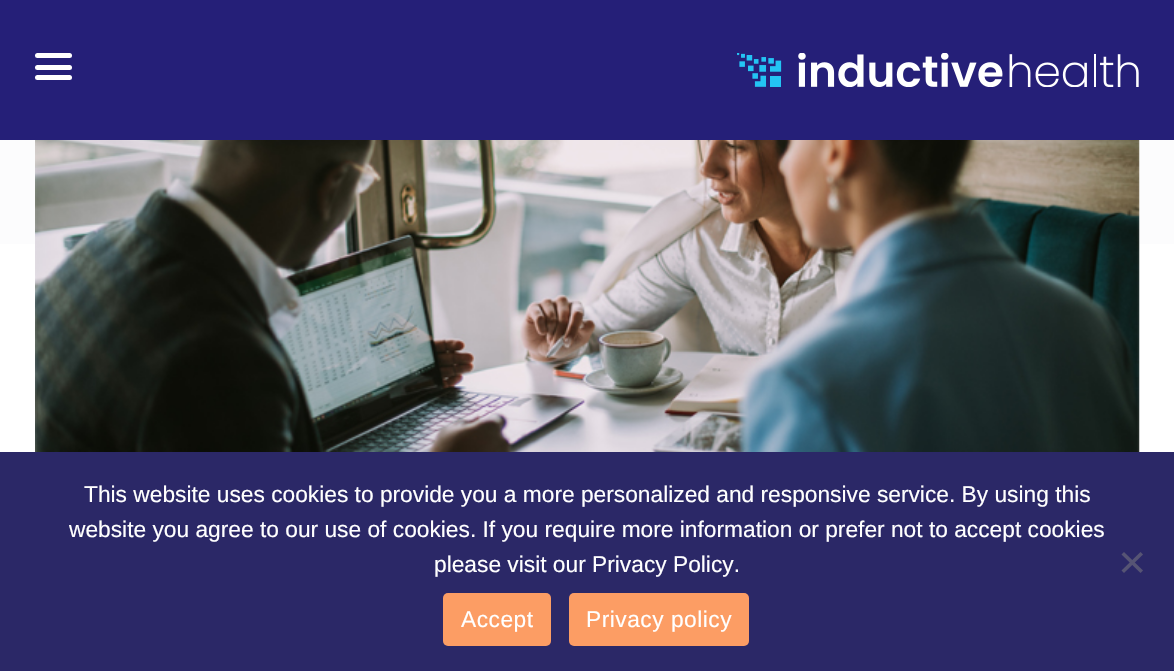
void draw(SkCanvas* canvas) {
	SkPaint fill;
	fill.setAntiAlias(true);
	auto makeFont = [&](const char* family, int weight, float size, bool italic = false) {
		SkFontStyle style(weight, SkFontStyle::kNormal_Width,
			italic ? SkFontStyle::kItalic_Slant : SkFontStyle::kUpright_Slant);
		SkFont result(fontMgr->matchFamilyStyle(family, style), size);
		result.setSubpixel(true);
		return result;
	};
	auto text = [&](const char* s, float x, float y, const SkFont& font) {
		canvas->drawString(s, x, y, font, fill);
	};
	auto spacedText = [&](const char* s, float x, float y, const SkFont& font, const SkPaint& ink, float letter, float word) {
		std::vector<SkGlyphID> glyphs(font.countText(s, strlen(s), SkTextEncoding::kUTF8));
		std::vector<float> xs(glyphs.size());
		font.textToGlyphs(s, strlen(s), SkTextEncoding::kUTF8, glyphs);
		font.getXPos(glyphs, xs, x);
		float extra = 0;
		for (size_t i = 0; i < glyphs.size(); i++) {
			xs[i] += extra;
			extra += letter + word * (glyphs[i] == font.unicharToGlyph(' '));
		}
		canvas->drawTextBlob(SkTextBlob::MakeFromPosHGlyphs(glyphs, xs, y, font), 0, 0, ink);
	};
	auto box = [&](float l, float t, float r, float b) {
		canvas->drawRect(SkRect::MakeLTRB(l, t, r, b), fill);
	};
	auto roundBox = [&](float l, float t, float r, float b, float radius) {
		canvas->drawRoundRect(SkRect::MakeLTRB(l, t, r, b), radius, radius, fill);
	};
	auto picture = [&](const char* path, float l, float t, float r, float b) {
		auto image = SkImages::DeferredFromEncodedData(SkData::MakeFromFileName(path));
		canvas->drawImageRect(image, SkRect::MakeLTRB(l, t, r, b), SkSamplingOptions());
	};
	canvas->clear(0xFFFFFFFF);
	fill.setColor(0xFF251F78);
	box(0, 0, 1174, 140);
	fill.setColor(0xFFFFFFFF);
	roundBox(35, 53, 72, 58, 2.5f);
	roundBox(35, 65, 72, 70, 2.5f);
	roundBox(35, 75, 72, 80, 2.5f);
	picture("image0.png", 737, 53, 1139, 87);
	{
		const SkColor colors[] = {0xFFFFFFFF, 0xFFFCFCFD};
		const float stops[] = {0, 1};
		const SkPoint ends[] = {{587, 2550}, {587, -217}};
		fill.setShader(SkGradientShader::MakeLinear(ends, colors, stops, 2, SkTileMode::kClamp));
		fill.setAlpha(255);
	}
	box(0, 140, 1174, 244);
	picture("image1.png", 35, 140, 1140, 452);
	fill.setShader(nullptr);
	fill.setColor(0xFF2B2867);
	box(0, 452, 1174, 671);
	fill.setColor(0xFF565474);
	canvas->drawPath(SkPathBuilder().moveTo(1140.5f, 552).lineTo(1143, 554.5f).lineTo(1124, 573).lineTo(1121.5f, 570.5f).close().detach(), fill);
	canvas->drawPath(SkPathBuilder().moveTo(1121.5f, 554.5f).lineTo(1124, 552).lineTo(1143, 570.5f).lineTo(1140.5f, 573).close().detach(), fill);
	fill.setColor(0xFFFC9D64);
	roundBox(443, 593, 551, 646, 5);
	roundBox(569, 593, 749, 646, 5);
	auto font1 = makeFont("Liberation Sans", 400, 22.75f);
	fill.setColor(0xFFFFFFFF);
	text("This website uses cookies to provide you a more personalized and responsive service. By using this", 84, 502, font1);
	text("website you agree to our use of cookies. If you require more information or prefer not to accept cookies", 69, 537, font1);
	text("please visit our Privacy Policy.", 434, 572, font1);
	spacedText("Accept", 461, 627, font1, fill, 0.5f, 0);
	spacedText("Privacy policy", 586, 627, font1, fill, 0.5f, 0);
}
